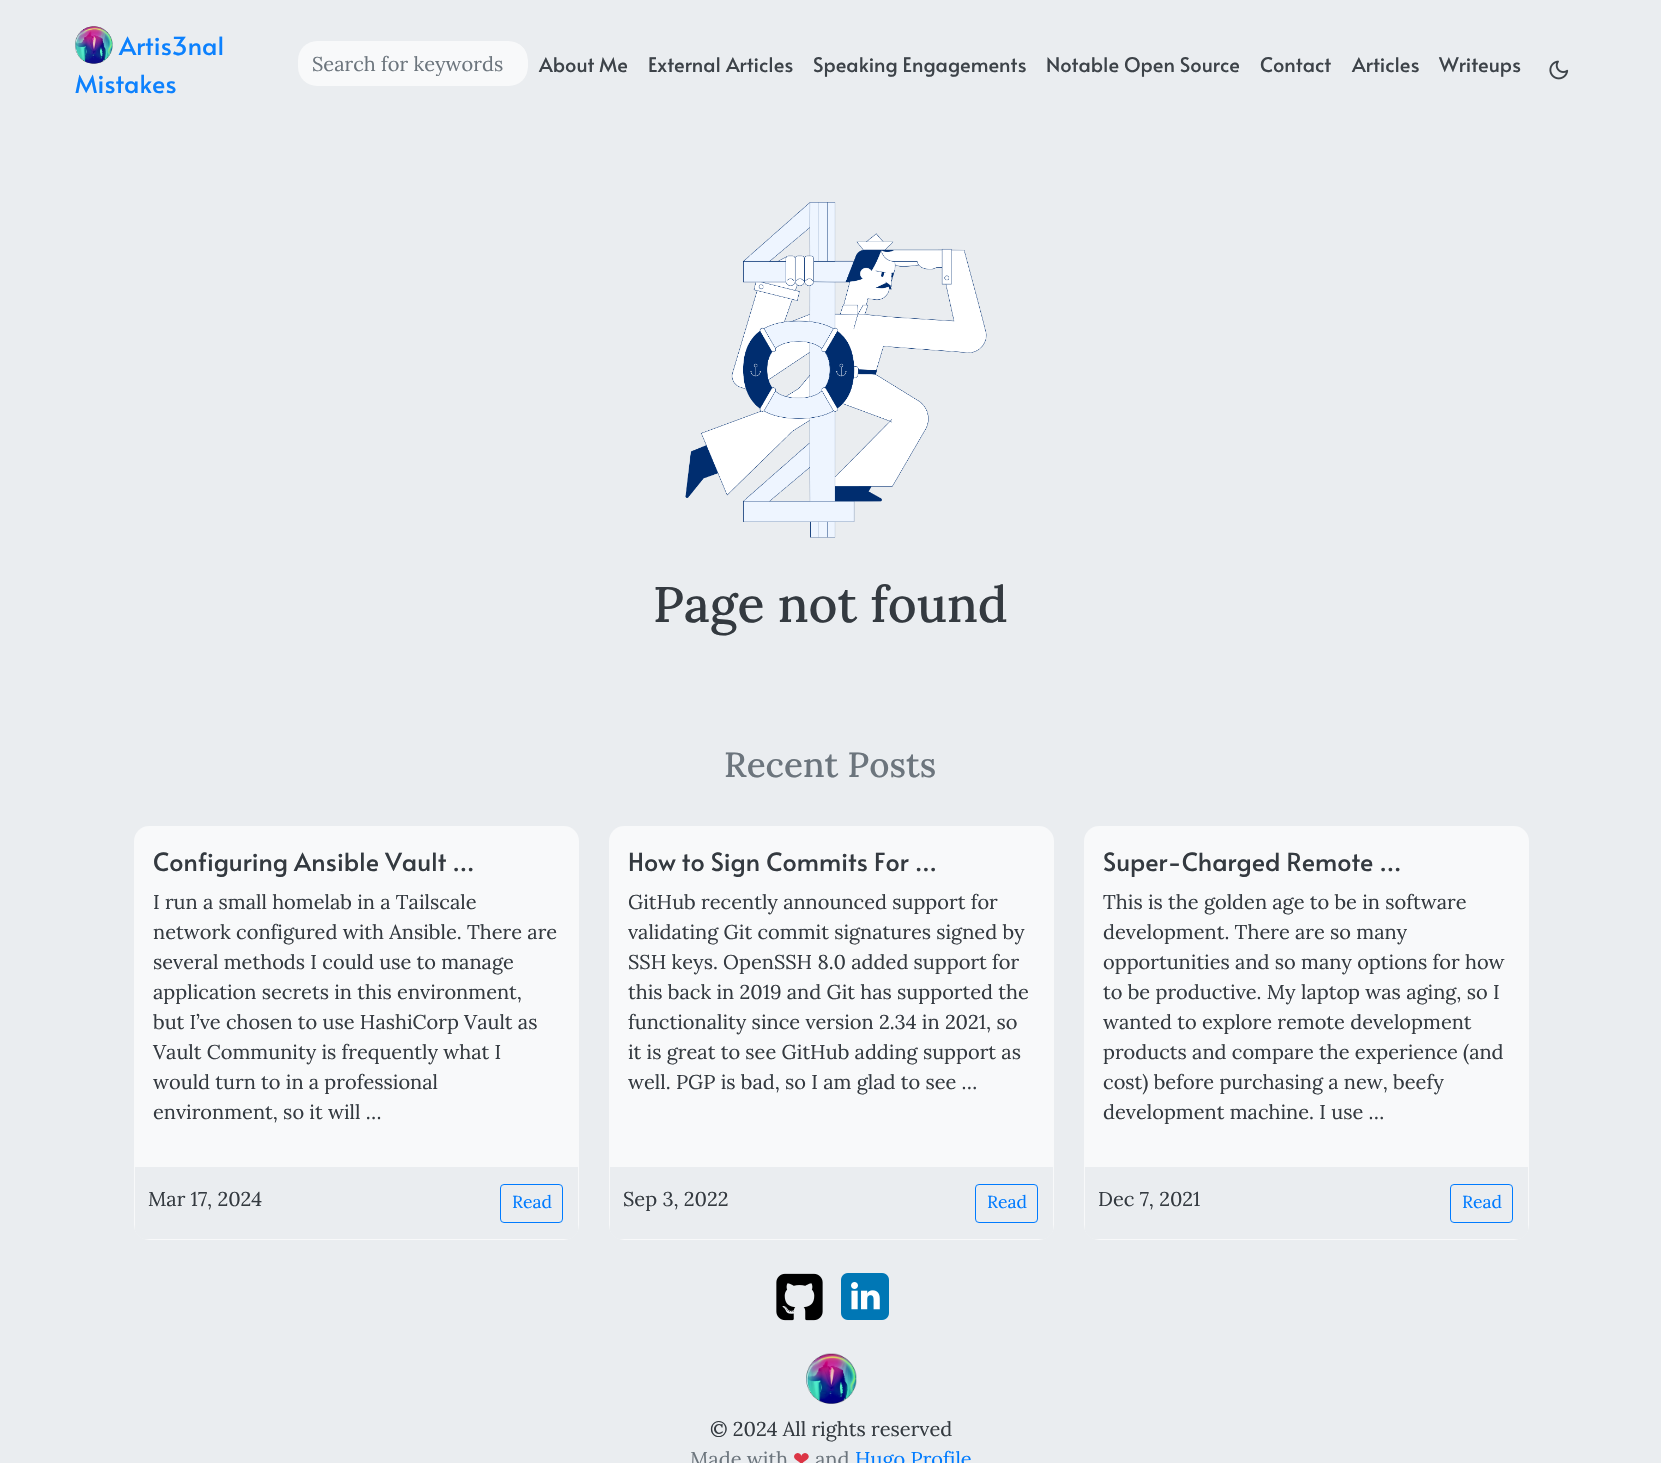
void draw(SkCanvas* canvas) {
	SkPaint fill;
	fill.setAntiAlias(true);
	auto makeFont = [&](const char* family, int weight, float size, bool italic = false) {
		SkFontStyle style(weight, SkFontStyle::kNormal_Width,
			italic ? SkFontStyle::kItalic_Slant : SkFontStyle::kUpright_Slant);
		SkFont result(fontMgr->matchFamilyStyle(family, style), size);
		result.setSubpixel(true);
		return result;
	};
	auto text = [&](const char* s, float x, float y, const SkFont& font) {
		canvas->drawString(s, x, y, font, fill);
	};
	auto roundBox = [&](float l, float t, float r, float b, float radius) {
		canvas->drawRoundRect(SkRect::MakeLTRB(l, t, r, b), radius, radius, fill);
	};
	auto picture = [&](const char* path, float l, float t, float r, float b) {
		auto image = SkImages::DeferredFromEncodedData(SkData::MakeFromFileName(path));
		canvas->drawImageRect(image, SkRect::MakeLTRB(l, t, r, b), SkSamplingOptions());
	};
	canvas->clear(0xFFEAEDF0);
	picture("image0.png", 75, 26, 113, 64);
	fill.setColor(0xFFF8F9FA);
	roundBox(298, 41, 528, 86, 19);
	fill.setStyle(SkPaint::kStroke_Style);
	fill.setStrokeWidth(1);
	fill.setColor(0xFFEAEDF0);
	canvas->drawRoundRect(SkRect::MakeLTRB(296.5f, 40.5f, 528.5f, 87.5f), 19.5f, 19.5f, fill);
	picture("image1.png", 1549, 60, 1569, 80);
	picture("image2.png", 685, 202, 987, 538);
	fill.setStyle(SkPaint::kFill_Style);
	fill.setColor(0xFFF8F9FA);
	roundBox(134, 826, 579, 1240, 15);
	fill.setColor(0xFFEAEDF0);
	canvas->drawPath(SkPathBuilder().moveTo(134, 1166).lineTo(579, 1166).lineTo(579, 1225).cubicTo(579, 1233.5f, 572.5f, 1240, 564, 1240).lineTo(149, 1240).cubicTo(140.5f, 1240, 134, 1233.5f, 134, 1225).close().detach(), fill);
	fill.setColor(0xFFF8F9FA);
	canvas->drawPath(SkPathBuilder(SkPathFillType::kEvenOdd).moveTo(135, 1167).lineTo(578, 1167).lineTo(578, 1230).lineTo(579, 1225).lineTo(579, 1166).lineTo(134, 1166).lineTo(134, 1225).lineTo(135, 1230).close().moveTo(564, 1240).lineTo(569, 1239).lineTo(144, 1239).lineTo(149, 1240).close().detach(), fill);
	fill.setStyle(SkPaint::kStroke_Style);
	fill.setColor(0xFF007BFF);
	canvas->drawRoundRect(SkRect::MakeLTRB(500.5f, 1184.5f, 562.5f, 1222.5f), 3.5f, 3.5f, fill);
	fill.setStyle(SkPaint::kFill_Style);
	fill.setColor(0xFFF8F9FA);
	roundBox(609, 826, 1054, 1240, 15);
	fill.setColor(0xFFEAEDF0);
	canvas->drawPath(SkPathBuilder().moveTo(609, 1166).lineTo(1054, 1166).lineTo(1054, 1225).cubicTo(1054, 1233.5f, 1047.5f, 1240, 1039, 1240).lineTo(624, 1240).cubicTo(615.5f, 1240, 609, 1233.5f, 609, 1225).close().detach(), fill);
	fill.setColor(0xFFF8F9FA);
	canvas->drawPath(SkPathBuilder(SkPathFillType::kEvenOdd).moveTo(610, 1167).lineTo(1053, 1167).lineTo(1053, 1230).lineTo(1054, 1225).lineTo(1054, 1166).lineTo(609, 1166).lineTo(609, 1225).lineTo(610, 1230).close().moveTo(1039, 1240).lineTo(1044, 1239).lineTo(619, 1239).lineTo(624, 1240).close().detach(), fill);
	fill.setStyle(SkPaint::kStroke_Style);
	fill.setColor(0xFF007BFF);
	canvas->drawRoundRect(SkRect::MakeLTRB(975.5f, 1184.5f, 1037.5f, 1222.5f), 3.5f, 3.5f, fill);
	fill.setStyle(SkPaint::kFill_Style);
	fill.setColor(0xFFF8F9FA);
	roundBox(1084, 826, 1529, 1240, 15);
	fill.setColor(0xFFEAEDF0);
	canvas->drawPath(SkPathBuilder().moveTo(1084, 1166).lineTo(1529, 1166).lineTo(1529, 1225).cubicTo(1529, 1233.5f, 1522.5f, 1240, 1514, 1240).lineTo(1099, 1240).cubicTo(1090.5f, 1240, 1084, 1233.5f, 1084, 1225).close().detach(), fill);
	fill.setColor(0xFFF8F9FA);
	canvas->drawPath(SkPathBuilder(SkPathFillType::kEvenOdd).moveTo(1085, 1167).lineTo(1528, 1167).lineTo(1528, 1230).lineTo(1529, 1225).lineTo(1529, 1166).lineTo(1084, 1166).lineTo(1084, 1225).lineTo(1085, 1230).close().moveTo(1514, 1240).lineTo(1519, 1239).lineTo(1094, 1239).lineTo(1099, 1240).close().detach(), fill);
	fill.setStyle(SkPaint::kStroke_Style);
	fill.setColor(0xFF007BFF);
	canvas->drawRoundRect(SkRect::MakeLTRB(1450.5f, 1184.5f, 1512.5f, 1222.5f), 3.5f, 3.5f, fill);
	picture("image3.png", 776, 1273, 823, 1321);
	picture("image4.png", 841, 1273, 889, 1320);
	picture("image5.png", 806, 1353, 857, 1404);
	auto font1 = makeFont("Alata", 400, 25);
	fill.setStyle(SkPaint::kFill_Style);
	fill.setColor(0xFF0C81FE);
	text("Artis3nal", 119, 55, font1);
	text("Mistakes", 75, 93, font1);
	canvas->save();
	canvas->clipRect(SkRect::MakeLTRB(313, 51, 513, 76));
	auto font2 = makeFont("Lora", 400, 20);
	fill.setColor(0xFF6C757D);
	text("Search for keywords", 312, 71, font2);
	canvas->restore();
	auto font3 = makeFont("Alata", 400, 20);
	fill.setColor(0xFF3D4349);
	text("About Me", 539, 72, font3);
	text("External Articles", 648, 72, font3);
	text("Speaking Engagements", 813, 72, font3);
	text("Notable Open Source", 1046, 72, font3);
	text("Contact", 1260, 72, font3);
	text("Articles", 1352, 72, font3);
	text("Writeups", 1439, 72, font3);
	auto font4 = makeFont("Lora", 500, 50);
	fill.setColor(0xFF343A40);
	text("Page not found", 653, 622, font4);
	auto font5 = makeFont("Lora", 500, 35);
	fill.setColor(0xFF6C757D);
	text("Recent Posts", 724, 777, font5);
	fill.setColor(0xFF343A40);
	text("Configuring Ansible Vault …", 153, 871, font1);
	text("I run a small homelab in a Tailscale", 153, 909, font2);
	text("network configured with Ansible. There are", 153, 939, font2);
	text("several methods I could use to manage", 153, 969, font2);
	text("application secrets in this environment,", 153, 999, font2);
	text("but I’ve chosen to use HashiCorp Vault as", 153, 1029, font2);
	text("Vault Community is frequently what I", 153, 1059, font2);
	text("would turn to in a professional", 153, 1089, font2);
	text("environment, so it will …", 153, 1119, font2);
	text("Mar 17, 2024", 148, 1206, font2);
	auto font6 = makeFont("Lora", 400, 17.5f);
	fill.setColor(0xFF007BFF);
	text("Read", 512, 1208, font6);
	fill.setColor(0xFF343A40);
	text("How to Sign Commits For …", 628, 871, font1);
	text("GitHub recently announced support for", 628, 909, font2);
	text("validating Git commit signatures signed by", 628, 939, font2);
	text("SSH keys. OpenSSH 8.0 added support for", 628, 969, font2);
	text("this back in 2019 and Git has supported the", 628, 999, font2);
	text("functionality since version 2.34 in 2021, so", 628, 1029, font2);
	text("it is great to see GitHub adding support as", 628, 1059, font2);
	text("well. PGP is bad, so I am glad to see …", 628, 1089, font2);
	text("Sep 3, 2022", 623, 1206, font2);
	fill.setColor(0xFF007BFF);
	text("Read", 987, 1208, font6);
	fill.setColor(0xFF343A40);
	text("Super-Charged Remote …", 1103, 871, font1);
	text("This is the golden age to be in software", 1103, 909, font2);
	text("development. There are so many", 1103, 939, font2);
	text("opportunities and so many options for how", 1103, 969, font2);
	text("to be productive. My laptop was aging, so I", 1103, 999, font2);
	text("wanted to explore remote development", 1103, 1029, font2);
	text("products and compare the experience (and", 1103, 1059, font2);
	text("cost) before purchasing a new, beefy", 1103, 1089, font2);
	text("development machine. I use …", 1103, 1119, font2);
	text("Dec 7, 2021", 1098, 1206, font2);
	fill.setColor(0xFF007BFF);
	text("Read", 1462, 1208, font6);
	fill.setColor(0xFF343A40);
	text("© 2024 All rights reserved", 710, 1436, font2);
	fill.setColor(0xFF6C757D);
	text("Made with", 690, 1466, font2);
	auto font7 = makeFont("DejaVu Sans", 400, 20);
	fill.setColor(0xFFDC3545);
	text("❤", 793, 1466, font7);
	fill.setColor(0xFF6C757D);
	text("and", 815, 1466, font2);
	fill.setColor(0xFF007BFF);
	text("Hugo Profile", 855, 1466, font2);
}
